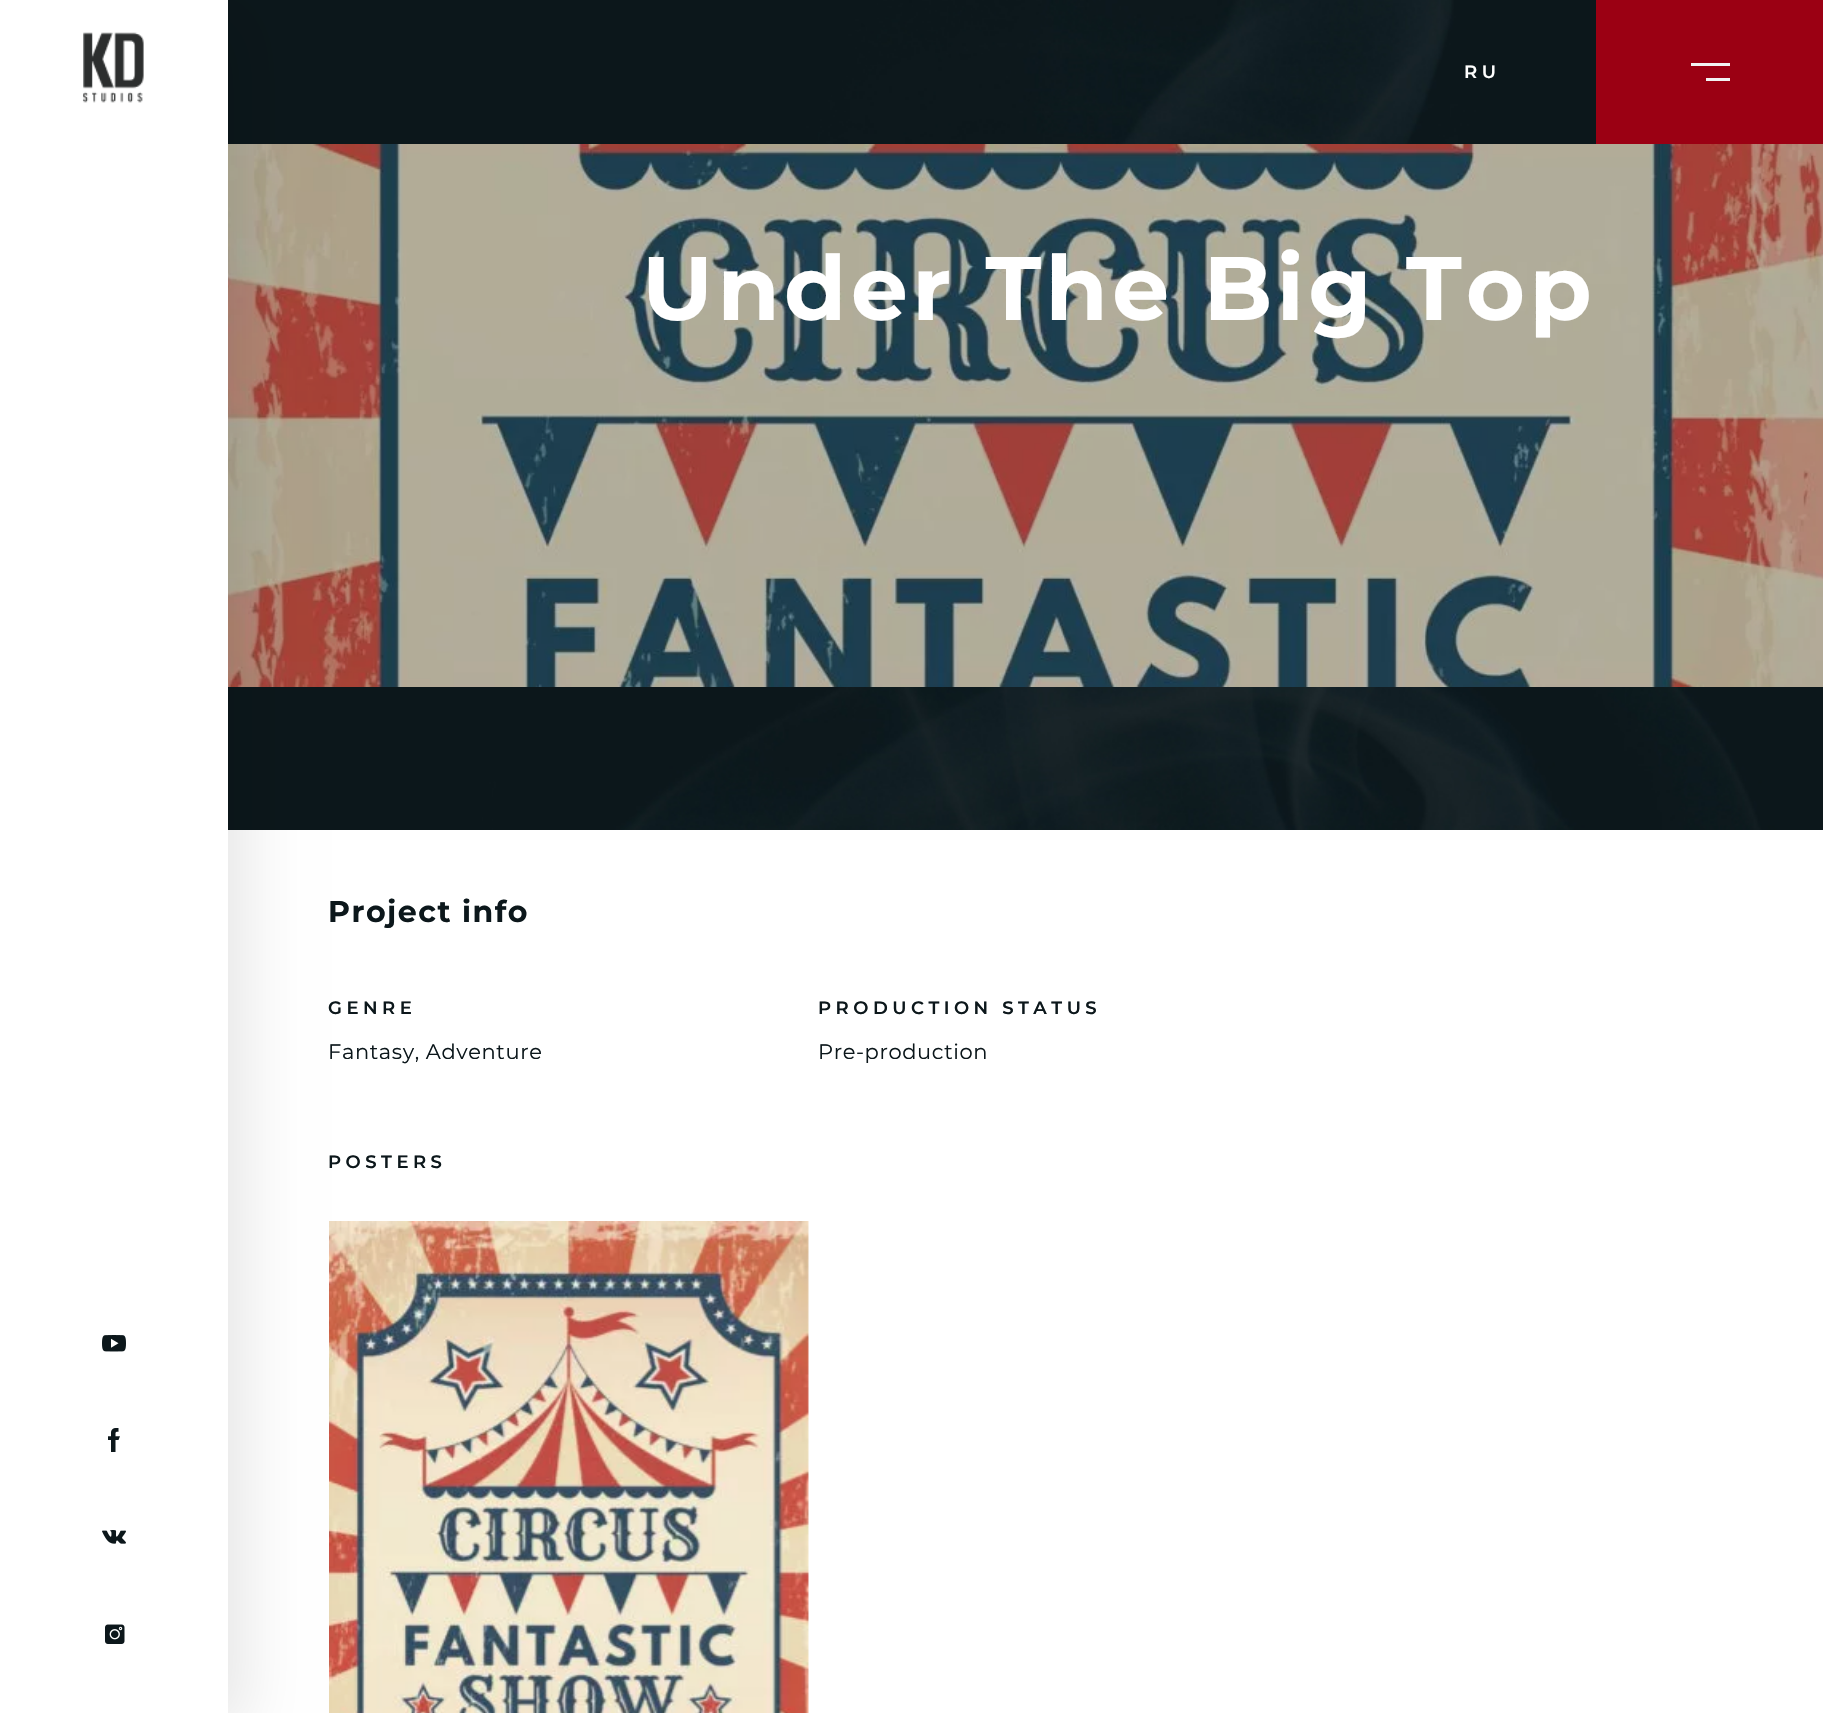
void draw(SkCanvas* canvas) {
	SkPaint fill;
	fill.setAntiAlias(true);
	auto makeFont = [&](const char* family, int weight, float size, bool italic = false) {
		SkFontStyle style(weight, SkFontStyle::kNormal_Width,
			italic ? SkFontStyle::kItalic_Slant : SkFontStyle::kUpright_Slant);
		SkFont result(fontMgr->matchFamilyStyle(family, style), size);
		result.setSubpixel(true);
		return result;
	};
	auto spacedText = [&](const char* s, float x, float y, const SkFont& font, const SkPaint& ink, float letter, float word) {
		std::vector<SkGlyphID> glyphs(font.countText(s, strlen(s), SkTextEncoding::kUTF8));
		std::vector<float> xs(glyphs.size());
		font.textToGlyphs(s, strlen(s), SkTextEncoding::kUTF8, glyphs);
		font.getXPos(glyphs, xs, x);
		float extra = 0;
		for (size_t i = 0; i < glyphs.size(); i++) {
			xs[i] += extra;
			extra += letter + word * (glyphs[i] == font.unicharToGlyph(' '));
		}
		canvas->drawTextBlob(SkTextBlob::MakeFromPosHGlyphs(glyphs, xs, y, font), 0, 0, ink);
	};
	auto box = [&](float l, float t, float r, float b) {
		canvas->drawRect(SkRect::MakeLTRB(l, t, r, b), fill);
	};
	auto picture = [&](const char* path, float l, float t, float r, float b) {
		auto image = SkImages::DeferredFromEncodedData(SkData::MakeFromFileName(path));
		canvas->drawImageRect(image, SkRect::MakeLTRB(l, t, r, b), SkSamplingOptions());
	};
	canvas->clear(0xFF0C171B);
	picture("image5.png", 482, 0, 1823, 830);
	picture("image6.png", 228, 144, 1823, 687);
	fill.setColor(0xFFFFFFFF);
	box(228, 830, 1823, 1713);
	picture("image7.png", 329, 1221, 809, 1713);
	fill.setColor(0x1A000000);
	fill.setMaskFilter(SkMaskFilter::MakeBlur(kNormal_SkBlurStyle, 30));
	canvas->drawRect(SkRect::MakeLTRB(15, 15, 243, 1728), fill);
	fill.setMaskFilter(nullptr);
	fill.setColor(0xFFFFFFFF);
	box(0, 0, 228, 1713);
	picture("image0.png", 82, 32, 144, 103);
	picture("image1.png", 102, 1335, 126, 1352);
	picture("image2.png", 108, 1428, 120, 1452);
	picture("image3.png", 102, 1530, 126, 1544);
	picture("image4.png", 105, 1624, 125, 1644);
	fill.setColor(0xFF9B0013);
	box(1596, 0, 1823, 144);
	fill.setColor(0xFFF2F2F2);
	box(1691, 63, 1730, 66);
	box(1706, 78, 1730, 81);
	auto font1 = makeFont("Montserrat", 600, 18);
	fill.setColor(0xFFFFFFFF);
	spacedText("RU", 1464, 78, font1, fill, 4.5f, 0);
	auto font2 = makeFont("Montserrat", 700, 90);
	spacedText("Under The Big Top", 642, 320, font2, fill, 4.5f, 0);
	auto font3 = makeFont("Montserrat", 700, 30);
	fill.setColor(0xFF0C171B);
	spacedText("Project info", 328, 922, font3, fill, 1.5f, 0);
	spacedText("GENRE", 328, 1014, font1, fill, 4.5f, 0);
	auto font4 = makeFont("Montserrat", 400, 21);
	spacedText("Fantasy, Adventure", 328, 1059, font4, fill, 0.6f, 0);
	spacedText("PRODUCTION STATUS", 818, 1014, font1, fill, 4.5f, 0);
	spacedText("Pre-production", 818, 1059, font4, fill, 0.6f, 0);
	spacedText("POSTERS", 328, 1168, font1, fill, 4.5f, 0);
}
